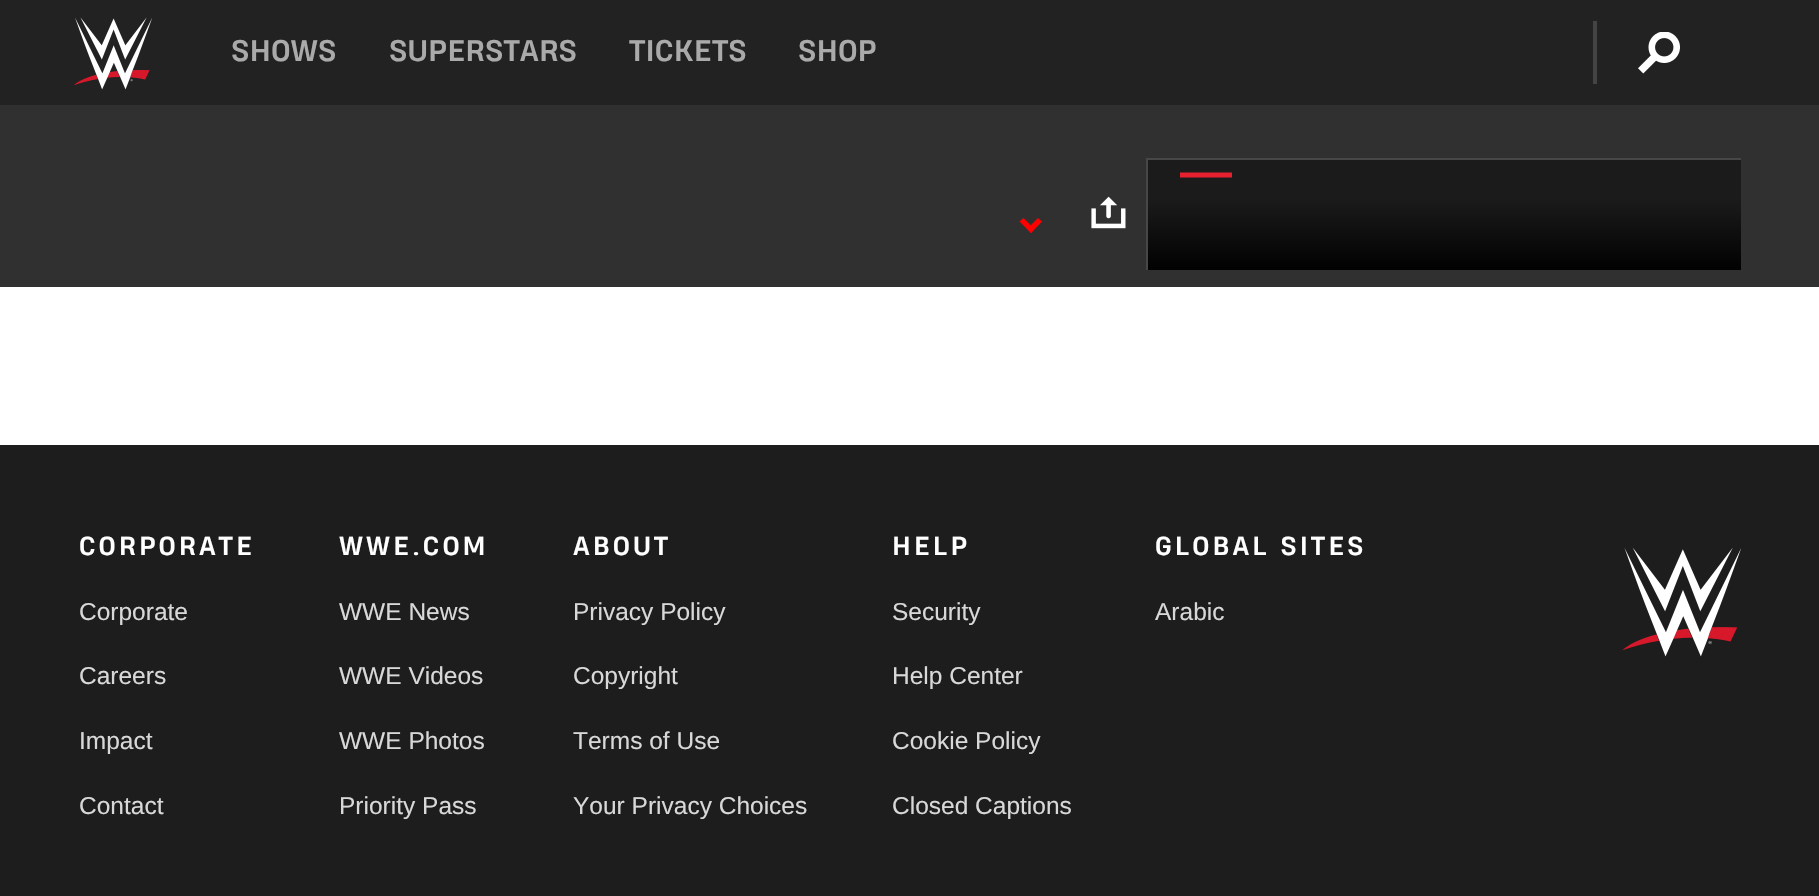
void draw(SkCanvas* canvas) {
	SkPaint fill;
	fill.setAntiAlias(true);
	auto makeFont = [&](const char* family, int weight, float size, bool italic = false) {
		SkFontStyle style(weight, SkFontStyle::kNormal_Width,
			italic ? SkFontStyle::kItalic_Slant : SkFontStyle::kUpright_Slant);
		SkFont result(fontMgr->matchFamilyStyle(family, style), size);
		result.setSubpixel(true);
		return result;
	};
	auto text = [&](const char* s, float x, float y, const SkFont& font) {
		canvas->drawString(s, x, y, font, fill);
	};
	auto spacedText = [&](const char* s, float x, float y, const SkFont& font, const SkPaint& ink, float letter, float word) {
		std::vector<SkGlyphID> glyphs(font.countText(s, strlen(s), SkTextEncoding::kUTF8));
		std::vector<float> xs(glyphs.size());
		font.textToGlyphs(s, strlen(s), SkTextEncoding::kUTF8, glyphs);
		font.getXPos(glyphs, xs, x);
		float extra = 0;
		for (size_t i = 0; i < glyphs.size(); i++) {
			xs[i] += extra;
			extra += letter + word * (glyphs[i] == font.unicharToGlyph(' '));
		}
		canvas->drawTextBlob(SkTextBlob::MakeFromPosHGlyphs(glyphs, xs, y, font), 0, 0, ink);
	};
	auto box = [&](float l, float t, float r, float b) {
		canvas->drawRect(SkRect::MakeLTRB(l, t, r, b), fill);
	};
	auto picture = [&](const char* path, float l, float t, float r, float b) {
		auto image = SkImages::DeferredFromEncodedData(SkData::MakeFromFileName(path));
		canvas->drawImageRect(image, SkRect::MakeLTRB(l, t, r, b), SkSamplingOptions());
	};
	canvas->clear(0xFFFFFFFF);
	fill.setColor(0xFF222222);
	box(0, 0, 1819, 105);
	picture("image0.png", 74, 17, 152, 90);
	fill.setColor(0xFF444444);
	box(1593, 21, 1597, 84);
	picture("image1.png", 1638, 32, 1680, 74);
	fill.setColor(0xFF303030);
	box(0, 105, 1819, 287);
	fill.setColor(0xFFFF0000);
	canvas->drawPath(SkPathBuilder().moveTo(1038, 218).lineTo(1042, 221.5f).lineTo(1031, 233).lineTo(1027, 229).close().detach(), fill);
	canvas->drawPath(SkPathBuilder().moveTo(1023.5f, 218).lineTo(1034.5f, 229).lineTo(1031, 233).lineTo(1019.5f, 221.5f).close().detach(), fill);
	picture("image2.png", 1091, 196, 1126, 229);
	fill.setColor(0xFF1B1B1B);
	box(1148, 160, 1741, 200);
	fill.setColor(0xFF474747);
	box(1146, 158, 1148, 270);
	box(1148, 158, 1741, 160);
	canvas->save();
	canvas->clipRect(SkRect::MakeLTRB(1180, 170, 1232, 179));
	fill.setStyle(SkPaint::kStroke_Style);
	fill.setStrokeWidth(5.2f);
	fill.setColor(0xFFE7202F);
	canvas->drawPath(SkPathBuilder().moveTo(1098, 175).lineTo(1255.5f, 175).detach(), fill);
	canvas->restore();
	fill.setStyle(SkPaint::kFill_Style);
	{
		const SkColor colors[] = {0xFF1B1B1B, 0xFF010101};
		const float stops[] = {0, 1};
		const SkPoint ends[] = {{1445, 199}, {1445, 270}};
		fill.setShader(SkGradientShader::MakeLinear(ends, colors, stops, 2, SkTileMode::kClamp));
		fill.setAlpha(255);
	}
	box(1148, 200, 1741, 270);
	fill.setShader(nullptr);
	fill.setColor(0xFF1D1D1D);
	box(0, 445, 1819, 896);
	picture("image3.png", 1622, 547, 1741, 657);
	auto font1 = makeFont("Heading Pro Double", 700, 28);
	fill.setColor(0xFFAAAAAA);
	text("SHOWS", 231, 61, font1);
	text("SUPERSTARS", 389, 61, font1);
	text("TICKETS", 629, 61, font1);
	text("SHOP", 798, 61, font1);
	auto font2 = makeFont("Heading Pro Double", 700, 24.5f);
	fill.setColor(0xFFFFFFFF);
	spacedText("CORPORATE", 79, 555, font2, fill, 3, 0);
	auto font3 = makeFont("Liberation Sans", 400, 24.5f);
	fill.setColor(0xFFD8D8D8);
	text("Corporate", 79, 620, font3);
	text("Careers", 79, 684, font3);
	text("Impact", 79, 749, font3);
	text("Contact", 79, 814, font3);
	fill.setColor(0xFFFFFFFF);
	spacedText("WWE.COM", 339, 555, font2, fill, 3, 0);
	fill.setColor(0xFFD8D8D8);
	text("WWE News", 339, 620, font3);
	text("WWE Videos", 339, 684, font3);
	text("WWE Photos", 339, 749, font3);
	text("Priority Pass", 339, 814, font3);
	fill.setColor(0xFFFFFFFF);
	spacedText("ABOUT", 573, 555, font2, fill, 3, 0);
	fill.setColor(0xFFD8D8D8);
	text("Privacy Policy", 573, 620, font3);
	text("Copyright", 573, 684, font3);
	text("Terms of Use", 573, 749, font3);
	text("Your Privacy Choices", 573, 814, font3);
	fill.setColor(0xFFFFFFFF);
	spacedText("HELP", 892, 555, font2, fill, 3, 0);
	fill.setColor(0xFFD8D8D8);
	text("Security", 892, 620, font3);
	text("Help Center", 892, 684, font3);
	text("Cookie Policy", 892, 749, font3);
	text("Closed Captions", 892, 814, font3);
	fill.setColor(0xFFFFFFFF);
	spacedText("GLOBAL SITES", 1155, 555, font2, fill, 3, 0);
	fill.setColor(0xFFD8D8D8);
	text("Arabic", 1155, 620, font3);
}
